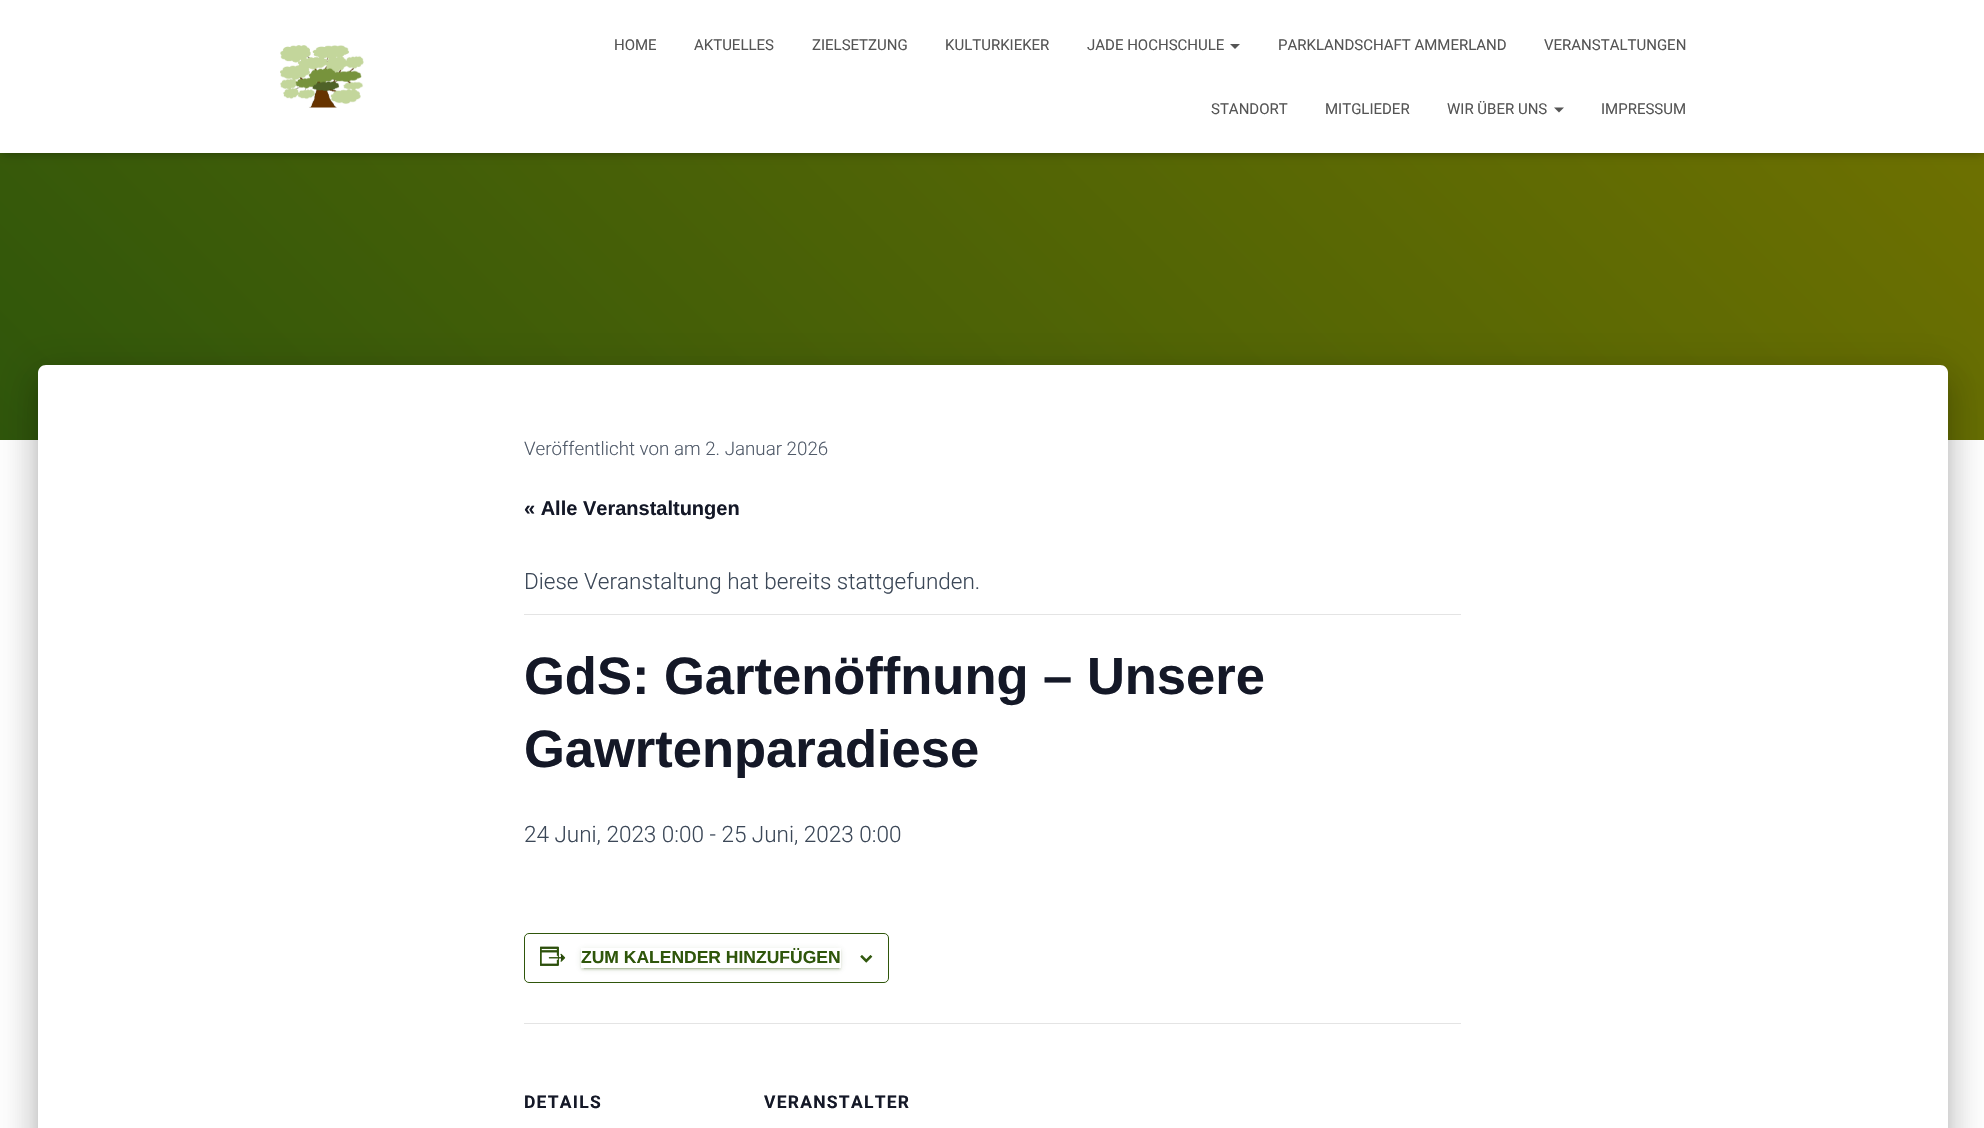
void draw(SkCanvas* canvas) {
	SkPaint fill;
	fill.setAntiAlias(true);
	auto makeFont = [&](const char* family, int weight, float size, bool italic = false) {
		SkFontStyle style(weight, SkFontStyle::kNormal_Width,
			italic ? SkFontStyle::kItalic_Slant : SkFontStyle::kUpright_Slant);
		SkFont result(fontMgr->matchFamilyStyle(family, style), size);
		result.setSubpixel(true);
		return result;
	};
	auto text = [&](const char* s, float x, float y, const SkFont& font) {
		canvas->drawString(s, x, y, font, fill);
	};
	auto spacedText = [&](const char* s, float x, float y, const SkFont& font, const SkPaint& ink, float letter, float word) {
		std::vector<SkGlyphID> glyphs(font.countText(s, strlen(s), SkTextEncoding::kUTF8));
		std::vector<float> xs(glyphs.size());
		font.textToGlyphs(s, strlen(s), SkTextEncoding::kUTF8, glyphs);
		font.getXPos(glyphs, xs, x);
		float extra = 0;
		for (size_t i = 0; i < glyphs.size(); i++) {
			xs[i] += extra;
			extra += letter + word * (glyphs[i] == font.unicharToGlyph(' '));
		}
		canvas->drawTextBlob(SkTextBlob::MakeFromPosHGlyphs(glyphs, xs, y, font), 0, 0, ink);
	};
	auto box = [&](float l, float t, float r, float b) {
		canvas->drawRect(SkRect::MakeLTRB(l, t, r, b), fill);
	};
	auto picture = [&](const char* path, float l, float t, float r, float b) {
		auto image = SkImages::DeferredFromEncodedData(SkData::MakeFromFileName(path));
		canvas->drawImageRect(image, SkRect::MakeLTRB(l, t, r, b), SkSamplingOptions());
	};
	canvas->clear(0xFFFFFFFF);
	{
		const SkColor colors[] = {0xFF2F560B, 0xFF717200};
		const float stops[] = {0, 1};
		const SkPoint ends[] = {{386, 826}, {1599, -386}};
		fill.setShader(SkGradientShader::MakeLinear(ends, colors, stops, 2, SkTileMode::kClamp));
		fill.setAlpha(255);
	}
	box(0, 153, 1984, 440);
	fill.setShader(nullptr);
	fill.setColor(0x1A000000);
	fill.setMaskFilter(SkMaskFilter::MakeBlur(kNormal_SkBlurStyle, 3));
	canvas->drawRect(SkRect::MakeLTRB(3, 8, 1983, 155), fill);
	fill.setMaskFilter(nullptr);
	fill.setColor(0x1F000000);
	fill.setMaskFilter(SkMaskFilter::MakeBlur(kNormal_SkBlurStyle, 6));
	canvas->drawRect(SkRect::MakeLTRB(0, 1, 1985, 154), fill);
	fill.setMaskFilter(nullptr);
	fill.setColor(0x6B000000);
	fill.setMaskFilter(SkMaskFilter::MakeBlur(kNormal_SkBlurStyle, 6));
	canvas->drawRect(SkRect::MakeLTRB(8, 9, 1978, 146), fill);
	fill.setMaskFilter(nullptr);
	fill.setColor(0xFFFFFFFF);
	box(0, 0, 1984, 153);
	picture("image0.png", 280, 45, 364, 108);
	fill.setColor(0xFF555555);
	canvas->drawPath(SkPathBuilder().moveTo(1230, 44).lineTo(1240, 44).lineTo(1235, 49).close().detach(), fill);
	canvas->drawPath(SkPathBuilder().moveTo(1554, 107.5f).lineTo(1564, 107.5f).lineTo(1559, 112.5f).close().detach(), fill);
	fill.setColor(0x33000000);
	fill.setMaskFilter(SkMaskFilter::MakeBlur(kNormal_SkBlurStyle, 6));
	canvas->drawRoundRect(SkRect::MakeLTRB(44, 381, 1941, 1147), 1, 1, fill);
	fill.setMaskFilter(nullptr);
	fill.setColor(0x1F000000);
	fill.setMaskFilter(SkMaskFilter::MakeBlur(kNormal_SkBlurStyle, 19));
	canvas->drawRoundRect(SkRect::MakeLTRB(31, 366, 1954, 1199), 14, 14, fill);
	fill.setMaskFilter(nullptr);
	fill.setColor(0x24000000);
	fill.setMaskFilter(SkMaskFilter::MakeBlur(kNormal_SkBlurStyle, 15));
	canvas->drawRoundRect(SkRect::MakeLTRB(35, 383, 1950, 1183), 10, 10, fill);
	fill.setMaskFilter(nullptr);
	fill.setColor(0xFFFFFFFF);
	canvas->drawPath(SkPathBuilder().moveTo(46, 365).lineTo(1940, 365).cubicTo(1944.5f, 365, 1948, 368.5f, 1948, 373).lineTo(1948, 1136).lineTo(38, 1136).lineTo(38, 373).cubicTo(38, 368.5f, 41.5f, 365, 46, 365).close().detach(), fill);
	fill.setColor(0xFFE4E4E4);
	box(524, 614, 1461, 615);
	fill.setStyle(SkPaint::kStroke_Style);
	fill.setStrokeWidth(1);
	fill.setColor(0xFF2F560B);
	canvas->drawRoundRect(SkRect::MakeLTRB(524.5f, 933.5f, 888.5f, 982.5f), 4.5f, 4.5f, fill);
	picture("image1.png", 540, 946, 566, 966);
	canvas->save();
	canvas->clipPath(SkPathBuilder(SkPathFillType::kEvenOdd).moveTo(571, 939).lineTo(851, 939).lineTo(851, 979).lineTo(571, 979).close().moveTo(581, 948).lineTo(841, 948).lineTo(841, 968).lineTo(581, 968).close().detach(), true);
	fill.setStyle(SkPaint::kFill_Style);
	fill.setColor(0x1F2F560B);
	fill.setMaskFilter(SkMaskFilter::MakeBlur(kNormal_SkBlurStyle, 3));
	canvas->drawRect(SkRect::MakeLTRB(581, 949, 841, 969), fill);
	fill.setMaskFilter(nullptr);
	canvas->restore();
	canvas->save();
	canvas->clipPath(SkPathBuilder(SkPathFillType::kEvenOdd).moveTo(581, 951).lineTo(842, 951).lineTo(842, 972).lineTo(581, 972).close().moveTo(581, 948).lineTo(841, 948).lineTo(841, 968).lineTo(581, 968).close().detach(), true);
	fill.setColor(0x332F560B);
	fill.setMaskFilter(SkMaskFilter::MakeBlur(kNormal_SkBlurStyle, 0.5f));
	canvas->drawRect(SkRect::MakeLTRB(584, 954, 839, 969), fill);
	fill.setMaskFilter(nullptr);
	canvas->restore();
	canvas->save();
	canvas->clipPath(SkPathBuilder(SkPathFillType::kEvenOdd).moveTo(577, 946).lineTo(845, 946).lineTo(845, 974).lineTo(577, 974).close().moveTo(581, 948).lineTo(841, 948).lineTo(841, 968).lineTo(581, 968).close().detach(), true);
	fill.setColor(0x242F560B);
	fill.setMaskFilter(SkMaskFilter::MakeBlur(kNormal_SkBlurStyle, 1));
	canvas->drawRect(SkRect::MakeLTRB(581, 950, 841, 970), fill);
	fill.setMaskFilter(nullptr);
	canvas->restore();
	picture("image2.png", 860, 955, 873, 963);
	fill.setColor(0xFFE4E4E4);
	box(524, 1023, 1461, 1024);
	auto font1 = makeFont("Roboto", 400, 15);
	fill.setColor(0xFF555555);
	text("HOME", 614, 50, font1);
	text("AKTUELLES", 694, 50, font1);
	text("ZIELSETZUNG", 812, 50, font1);
	text("KULTURKIEKER", 945, 50, font1);
	text("JADE HOCHSCHULE", 1087, 50, font1);
	text("PARKLANDSCHAFT AMMERLAND", 1278, 50, font1);
	text("VERANSTALTUNGEN", 1544, 50, font1);
	text("STANDORT", 1211, 114, font1);
	text("MITGLIEDER", 1325, 114, font1);
	text("WIR ÜBER UNS", 1447, 114, font1);
	text("IMPRESSUM", 1601, 114, font1);
	auto font2 = makeFont("Roboto", 300, 18.75f);
	fill.setColor(0xFF505A69);
	text("Veröffentlicht von am 2. Januar 2026", 524, 455, font2);
	auto font3 = makeFont("Liberation Sans", 700, 20);
	fill.setColor(0xFF141827);
	text("« Alle Veranstaltungen", 524, 515, font3);
	auto font4 = makeFont("Roboto", 300, 22.5f);
	fill.setColor(0xFF3C4858);
	text("Diese Veranstaltung hat bereits stattgefunden.", 524, 589, font4);
	auto font5 = makeFont("Liberation Sans", 700, 52.5f);
	fill.setColor(0xFF141827);
	text("GdS: Gartenöffnung – Unsere", 524, 694, font5);
	text("Gawrtenparadiese", 524, 767, font5);
	fill.setColor(0xFF3C4858);
	text("24 Juni, 2023 0:00 - 25 Juni, 2023 0:00", 524, 842, font4);
	auto font6 = makeFont("Liberation Sans", 700, 17.5f);
	fill.setColor(0xFF2F560B);
	text("ZUM KALENDER HINZUFÜGEN", 581, 963, font6);
	auto font7 = makeFont("Roboto", 700, 17.5f);
	fill.setColor(0xFF141827);
	spacedText("DETAILS", 524, 1108, font7, fill, 1.25f, 0);
	spacedText("VERANSTALTER", 764, 1108, font7, fill, 1.25f, 0);
}
